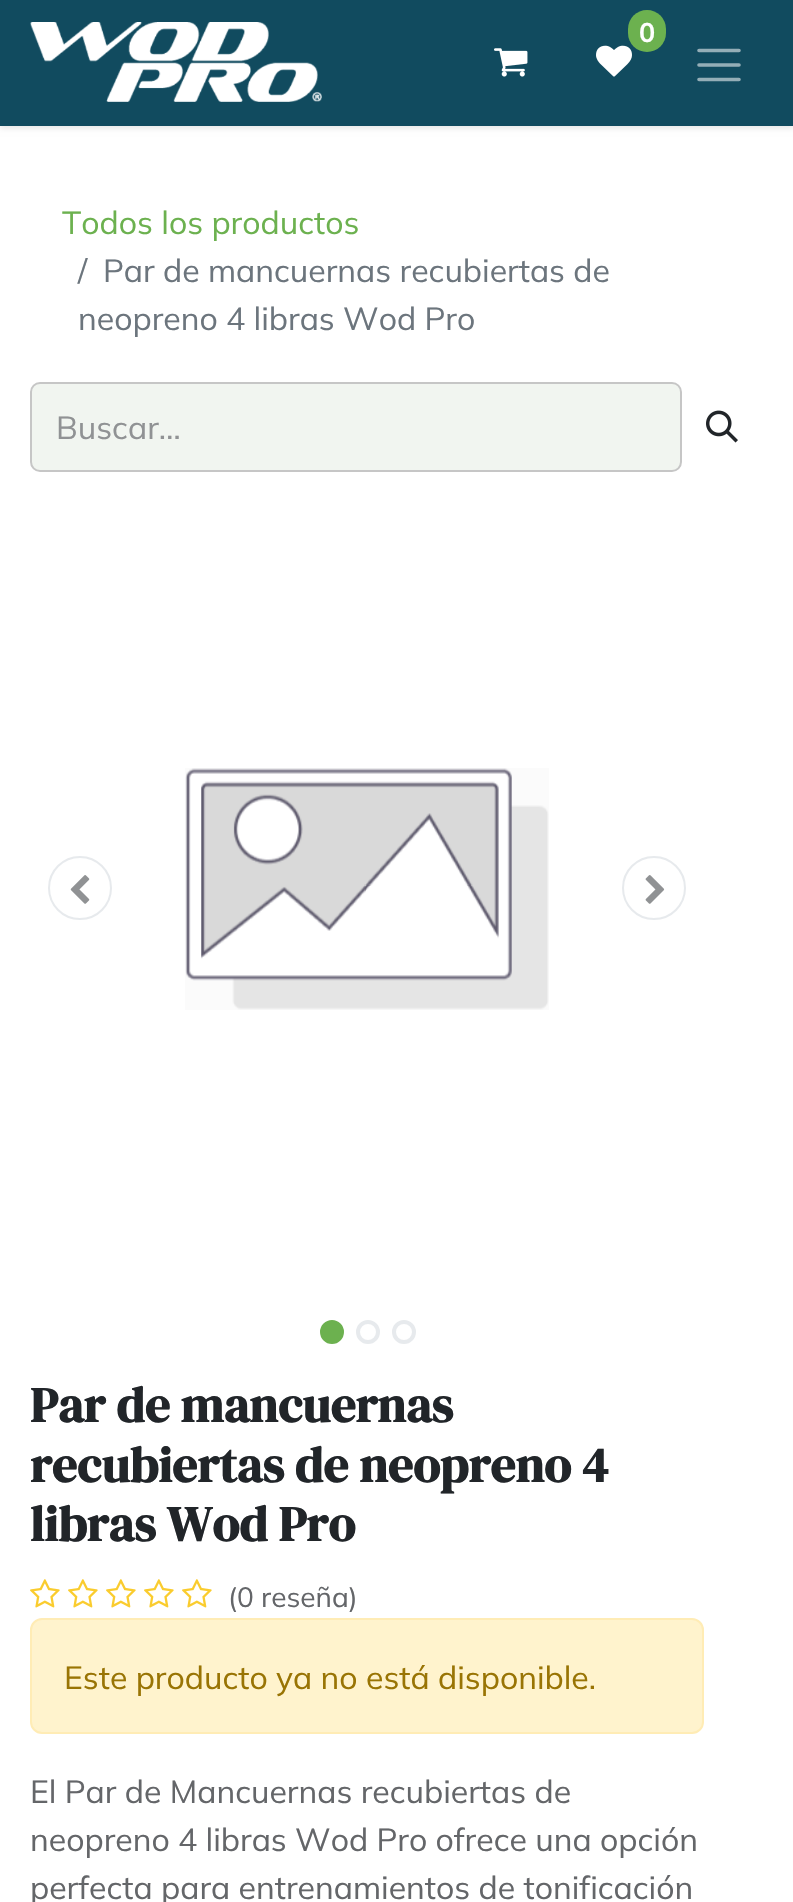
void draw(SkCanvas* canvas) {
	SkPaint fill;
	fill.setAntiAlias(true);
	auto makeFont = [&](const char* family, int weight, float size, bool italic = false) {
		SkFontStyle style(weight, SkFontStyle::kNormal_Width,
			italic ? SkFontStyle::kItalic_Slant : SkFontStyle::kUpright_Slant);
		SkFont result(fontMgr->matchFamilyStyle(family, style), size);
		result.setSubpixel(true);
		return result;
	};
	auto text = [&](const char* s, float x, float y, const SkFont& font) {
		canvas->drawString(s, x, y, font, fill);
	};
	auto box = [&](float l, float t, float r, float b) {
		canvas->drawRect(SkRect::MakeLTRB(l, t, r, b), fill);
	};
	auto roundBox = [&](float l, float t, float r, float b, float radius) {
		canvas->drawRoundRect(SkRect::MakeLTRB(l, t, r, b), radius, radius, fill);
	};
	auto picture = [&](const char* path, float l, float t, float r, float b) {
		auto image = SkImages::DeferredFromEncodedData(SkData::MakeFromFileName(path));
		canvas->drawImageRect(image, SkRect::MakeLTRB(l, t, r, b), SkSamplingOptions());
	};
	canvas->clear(0xFFFFFFFF);
	fill.setColor(0x1A000000);
	fill.setMaskFilter(SkMaskFilter::MakeBlur(kNormal_SkBlurStyle, 3));
	canvas->drawRect(SkRect::MakeLTRB(0, 2, 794, 128), fill);
	fill.setMaskFilter(nullptr);
	fill.setColor(0xFF114B5F);
	box(0, 0, 793, 126);
	picture("image0.png", 30, 22, 322, 102);
	picture("image1.png", 596, 45, 632, 77);
	fill.setColor(0xFF6CB14F);
	roundBox(628, 10, 666, 52, 19);
	picture("image2.png", 494, 48, 528, 77);
	fill.setStyle(SkPaint::kStroke_Style);
	fill.setStrokeWidth(3.6f);
	fill.setStrokeCap(SkPaint::kRound_Cap);
	fill.setColor(0xFF94AEB7);
	canvas->drawPath(SkPathBuilder().moveTo(699, 50.5f).lineTo(739, 50.5f).moveTo(699, 65).lineTo(739, 65).moveTo(699, 79.5f).lineTo(739, 79.5f).detach(), fill);
	fill.setStyle(SkPaint::kFill_Style);
	fill.setColor(0xFFF1F5F0);
	canvas->drawRoundRect(SkRect::MakeLTRB(31, 383, 681, 471), 9, 9, fill);
	fill.setStyle(SkPaint::kStroke_Style);
	fill.setStrokeWidth(2);
	fill.setStrokeCap(SkPaint::kButt_Cap);
	fill.setColor(0xFFC6C6C6);
	canvas->drawRoundRect(SkRect::MakeLTRB(31, 383, 681, 471), 9, 9, fill);
	picture("image3.png", 706, 410, 738, 443);
	fill.setColor(0xFFE7EAED);
	canvas->drawCircle(80, 888, 31, fill);
	picture("image4.png", 70, 875, 90, 904);
	picture("image5.png", 185, 768, 549, 1010);
	canvas->drawCircle(654, 888, 31, fill);
	picture("image6.png", 645, 875, 665, 904);
	fill.setStyle(SkPaint::kFill_Style);
	fill.setColor(0xFF6CB14F);
	canvas->drawCircle(332, 1332, 10, fill);
	fill.setStyle(SkPaint::kStroke_Style);
	fill.setStrokeWidth(4);
	canvas->drawCircle(332, 1332, 10, fill);
	fill.setColor(0xFFE7EAED);
	canvas->drawCircle(368, 1332, 10, fill);
	canvas->drawCircle(404, 1332, 10, fill);
	picture("image7.png", 30, 1579, 60, 1608);
	picture("image7.png", 68, 1579, 98, 1608);
	picture("image7.png", 106, 1579, 136, 1608);
	picture("image7.png", 144, 1579, 174, 1608);
	picture("image7.png", 182, 1579, 212, 1608);
	fill.setStyle(SkPaint::kFill_Style);
	fill.setColor(0xFFFFF3CD);
	canvas->drawRoundRect(SkRect::MakeLTRB(31, 1619, 703, 1733), 11, 11, fill);
	fill.setStyle(SkPaint::kStroke_Style);
	fill.setStrokeWidth(2);
	fill.setColor(0xFFFFECB5);
	canvas->drawRoundRect(SkRect::MakeLTRB(31, 1619, 703, 1733), 11, 11, fill);
	auto font1 = makeFont("Mulish", 700, 27);
	fill.setStyle(SkPaint::kFill_Style);
	fill.setColor(0xFFFFFFFF);
	text("0", 639, 42, font1);
	auto font2 = makeFont("Mulish", 400, 32);
	fill.setColor(0xFF6CB14F);
	text("Todos los productos", 62, 234, font2);
	fill.setColor(0xFF6C757D);
	text("/", 78, 282, font2);
	text("Par de mancuernas recubiertas de", 103, 282, font2);
	text("neopreno 4 libras Wod Pro", 78, 330, font2);
	fill.setColor(0xFF909294);
	text("Buscar…", 56, 439, font2);
	auto font3 = makeFont("DM Serif Display", 700, 49.5f);
	fill.setColor(0xFF212529);
	text("Par de mancuernas", 30, 1422, font3);
	text("recubiertas de neopreno 4", 30, 1482, font3);
	text("libras Wod Pro", 30, 1541, font3);
	auto font4 = makeFont("Mulish", 400, 28);
	fill.setColor(0xFF646669);
	text("(0 reseña)", 228, 1607, font4);
	fill.setColor(0xFF997404);
	text("Este producto ya no está disponible.", 64, 1689, font2);
	fill.setColor(0xFF646669);
	text("El Par de Mancuernas recubiertas de", 30, 1803, font2);
	text("neopreno 4 libras Wod Pro ofrece una opción", 30, 1851, font2);
	text("perfecta para entrenamientos de tonificación", 30, 1899, font2);
}
